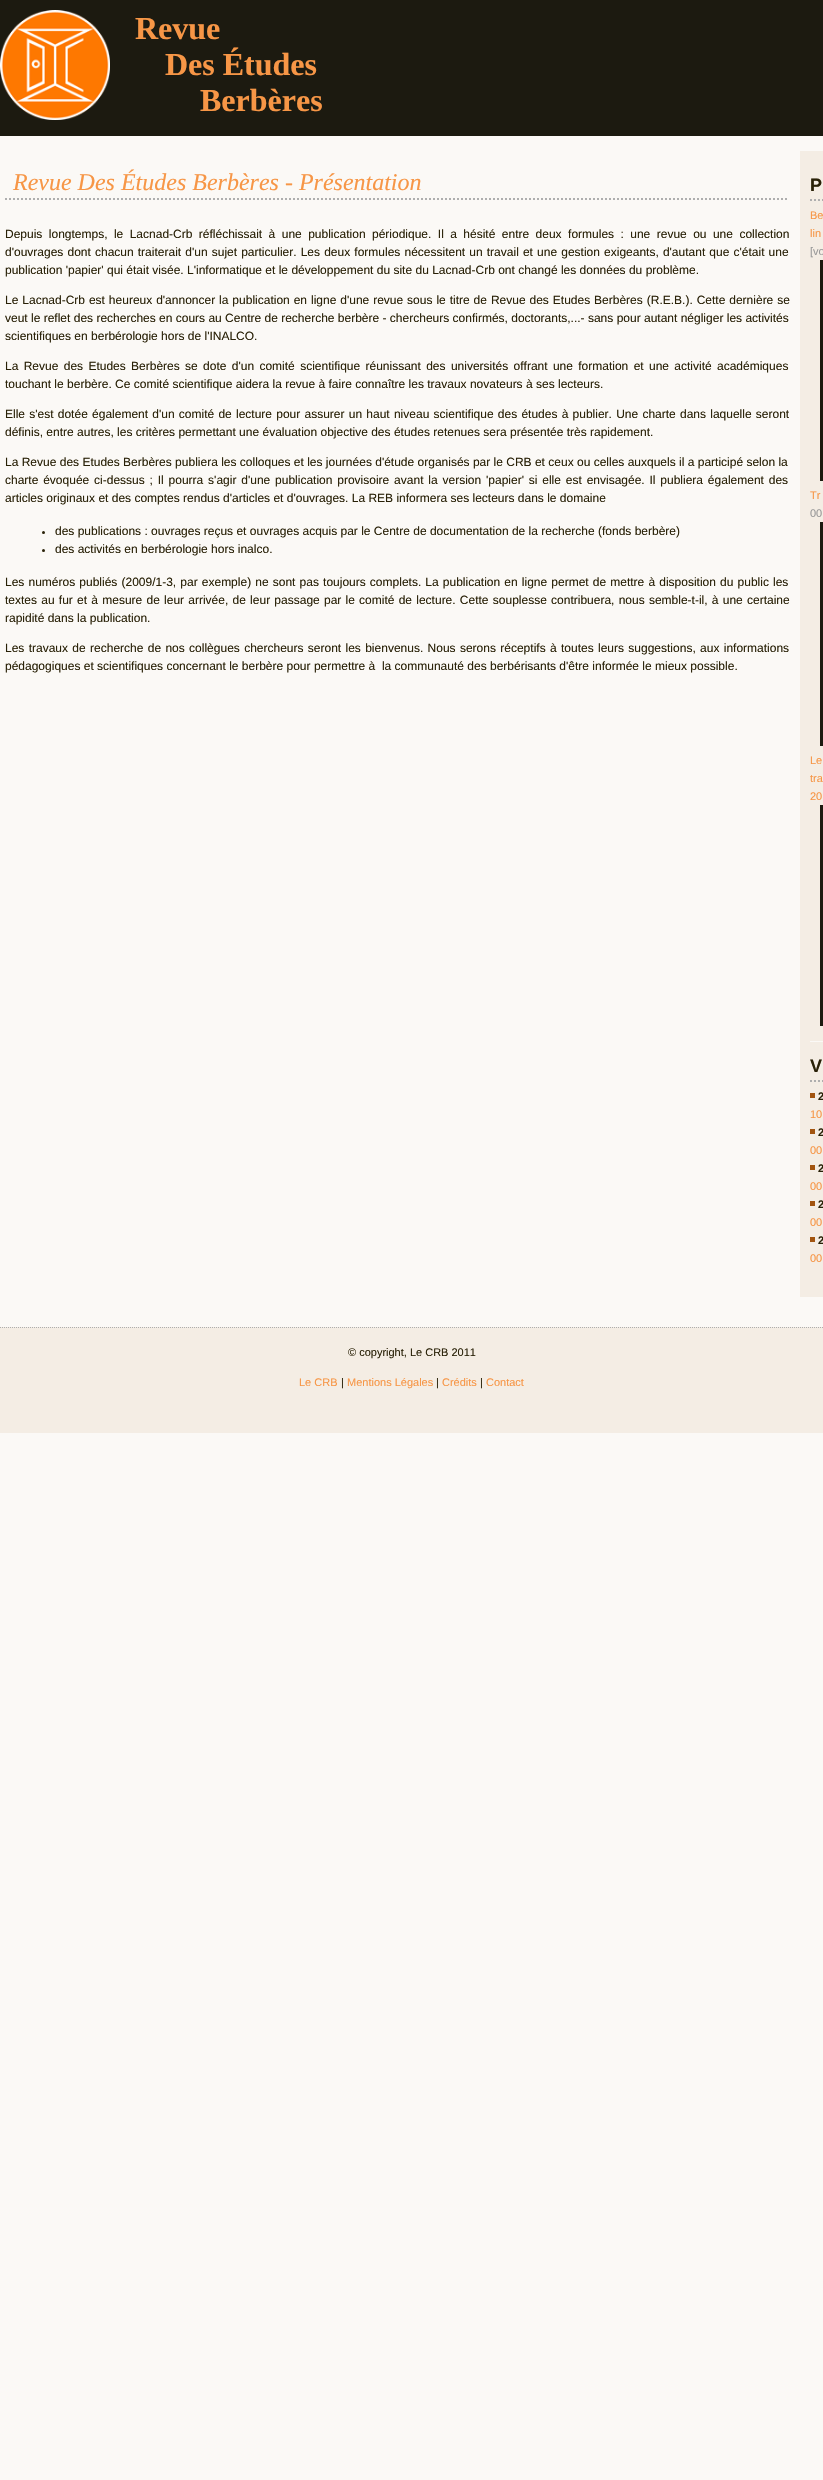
void draw(SkCanvas* canvas) {
	SkPaint fill;
	fill.setAntiAlias(true);
	auto makeFont = [&](const char* family, int weight, float size, bool italic = false) {
		SkFontStyle style(weight, SkFontStyle::kNormal_Width,
			italic ? SkFontStyle::kItalic_Slant : SkFontStyle::kUpright_Slant);
		SkFont result(fontMgr->matchFamilyStyle(family, style), size);
		result.setSubpixel(true);
		return result;
	};
	auto text = [&](const char* s, float x, float y, const SkFont& font) {
		canvas->drawString(s, x, y, font, fill);
	};
	auto spacedText = [&](const char* s, float x, float y, const SkFont& font, const SkPaint& ink, float letter, float word) {
		std::vector<SkGlyphID> glyphs(font.countText(s, strlen(s), SkTextEncoding::kUTF8));
		std::vector<float> xs(glyphs.size());
		font.textToGlyphs(s, strlen(s), SkTextEncoding::kUTF8, glyphs);
		font.getXPos(glyphs, xs, x);
		float extra = 0;
		for (size_t i = 0; i < glyphs.size(); i++) {
			xs[i] += extra;
			extra += letter + word * (glyphs[i] == font.unicharToGlyph(' '));
		}
		canvas->drawTextBlob(SkTextBlob::MakeFromPosHGlyphs(glyphs, xs, y, font), 0, 0, ink);
	};
	auto box = [&](float l, float t, float r, float b) {
		canvas->drawRect(SkRect::MakeLTRB(l, t, r, b), fill);
	};
	auto picture = [&](const char* path, float l, float t, float r, float b) {
		auto image = SkImages::DeferredFromEncodedData(SkData::MakeFromFileName(path));
		canvas->drawImageRect(image, SkRect::MakeLTRB(l, t, r, b), SkSamplingOptions());
	};
	canvas->clear(0xFFFBF9F6);
	fill.setColor(0xFF1C1A10);
	box(0, 0, 823, 136);
	picture("image0.png", 0, 10, 110, 120);
	fill.setStyle(SkPaint::kStroke_Style);
	fill.setStrokeWidth(2);
	fill.setColor(0xFFAEAEAE);
	fill.setPathEffect(SkDashPathEffect::Make({{2, 2}}, 0));
	canvas->drawPath(SkPathBuilder().moveTo(5, 199).lineTo(789, 199).detach(), fill);
	fill.setPathEffect(nullptr);
	fill.setStyle(SkPaint::kFill_Style);
	fill.setColor(0xFF292107);
	canvas->drawCircle(43.5f, 532.5f, 1.5f, fill);
	canvas->drawCircle(43.5f, 550.5f, 1.5f, fill);
	fill.setColor(0xFFF4EDE4);
	box(800, 151, 823, 1297);
	fill.setStyle(SkPaint::kStroke_Style);
	fill.setColor(0xFFAEAEAE);
	fill.setPathEffect(SkDashPathEffect::Make({{2, 2}}, 0));
	canvas->drawPath(SkPathBuilder().moveTo(810, 200).lineTo(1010, 200).detach(), fill);
	fill.setPathEffect(nullptr);
	fill.setStyle(SkPaint::kFill_Style);
	fill.setColor(0xFFFBF9F6);
	box(810, 1041, 823, 1042);
	fill.setColor(0xFF1B190D);
	box(820, 260, 823, 481);
	fill.setColor(0xFF1C1A10);
	box(820, 522, 823, 746);
	box(820, 805, 823, 1026);
	fill.setStyle(SkPaint::kStroke_Style);
	fill.setColor(0xFFAEAEAE);
	fill.setPathEffect(SkDashPathEffect::Make({{2, 2}}, 0));
	canvas->drawPath(SkPathBuilder().moveTo(810, 1081).lineTo(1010, 1081).detach(), fill);
	fill.setPathEffect(nullptr);
	fill.setStyle(SkPaint::kFill_Style);
	fill.setColor(0xFFA2540F);
	box(810, 1093, 815, 1098);
	box(810, 1129, 815, 1134);
	box(810, 1165, 815, 1170);
	box(810, 1201, 815, 1206);
	box(810, 1237, 815, 1242);
	fill.setColor(0xFFF4EDE4);
	box(0, 1327, 823, 1433);
	fill.setStyle(SkPaint::kStroke_Style);
	fill.setStrokeWidth(1);
	fill.setColor(0xFFAEAEAE);
	fill.setPathEffect(SkDashPathEffect::Make({{1, 1}}, 0));
	canvas->drawPath(SkPathBuilder().moveTo(0, 1327.5f).lineTo(823, 1327.5f).detach(), fill);
	fill.setPathEffect(nullptr);
	auto font1 = makeFont("Liberation Serif", 700, 32);
	fill.setStyle(SkPaint::kFill_Style);
	fill.setColor(0xFFF79646);
	text("Revue", 135, 39, font1);
	text("Des Études", 165, 75, font1);
	text("Berbères", 200, 111, font1);
	auto font2 = makeFont("Liberation Serif", 400, 24, true);
	text("Revue Des Études Berbères - Présentation", 13, 190, font2);
	auto font3 = makeFont("Liberation Sans", 400, 12);
	fill.setColor(0xFF292107);
	spacedText("Depuis longtemps, le Lacnad-Crb réfléchissait à une publication périodique. Il a hésité entre deux formules : une revue ou une collection", 5, 238, font3, fill, 0, 3.1f);
	spacedText("d'ouvrages dont chacun traiterait d'un sujet particulier. Les deux formules nécessitent un travail et une gestion exigeants, d'autant que c'était une", 5, 256, font3, fill, 0, 0.8f);
	text("publication 'papier' qui était visée. L'informatique et le développement du site du Lacnad-Crb ont changé les données du problème.", 5, 274, font3);
	spacedText("Le Lacnad-Crb est heureux d'annoncer la publication en ligne d'une revue sous le titre de Revue des Etudes Berbères (R.E.B.). Cette dernière se", 5, 304, font3, fill, 0, 0.6f);
	text("veut le reflet des recherches en cours au Centre de recherche berbère - chercheurs confirmés, doctorants,...- sans pour autant négliger les activités", 5, 322, font3);
	text("scientifiques en berbérologie hors de l'INALCO.", 5, 340, font3);
	spacedText("La Revue des Etudes Berbères se dote d'un comité scientifique réunissant des universités offrant une formation et une activité académiques", 5, 370, font3, fill, 0, 2);
	text("touchant le berbère. Ce comité scientifique aidera la revue à faire connaître les travaux novateurs à ses lecteurs.", 5, 388, font3);
	spacedText("Elle s'est dotée également d'un comité de lecture pour assurer un haut niveau scientifique des études à publier. Une charte dans laquelle seront", 5, 418, font3, fill, 0, 0.9f);
	text("définis, entre autres, les critères permettant une évaluation objective des études retenues sera présentée très rapidement.", 5, 436, font3);
	text("La Revue des Etudes Berbères publiera les colloques et les journées d'étude organisés par le CRB et ceux ou celles auxquels il a participé selon la", 5, 466, font3);
	spacedText("charte évoquée ci-dessus ; Il pourra s'agir d'une publication provisoire avant la version 'papier' si elle est envisagée. Il publiera également des", 5, 484, font3, fill, 0, 1.5f);
	text("articles originaux et des comptes rendus d'articles et d'ouvrages. La REB informera ses lecteurs dans le domaine", 5, 502, font3);
	text("des publications : ouvrages reçus et ouvrages acquis par le Centre de documentation de la recherche (fonds berbère)", 55, 535, font3);
	text("des activités en berbérologie hors inalco.", 55, 553, font3);
	spacedText("Les numéros publiés (2009/1-3, par exemple) ne sont pas toujours complets. La publication en ligne permet de mettre à disposition du public les", 5, 586, font3, fill, 0, 0.8f);
	spacedText("textes au fur et à mesure de leur arrivée, de leur passage par le comité de lecture. Cette souplesse contribuera, nous semble-t-il, à une certaine", 5, 604, font3, fill, 0, 0.9f);
	text("rapidité dans la publication.", 5, 622, font3);
	spacedText("Les travaux de recherche de nos collègues chercheurs seront les bienvenus. Nous serons réceptifs à toutes leurs suggestions, aux informations", 5, 652, font3, fill, 0, 1);
	text("pédagogiques et scientifiques concernant le berbère pour permettre à  la communauté des berbérisants d'être informée le mieux possible.", 5, 670, font3);
	auto font4 = makeFont("Liberation Sans", 700, 18);
	text("P", 810, 191, font4);
	auto font5 = makeFont("Liberation Sans", 400, 11);
	fill.setColor(0xFFF79646);
	spacedText("Be", 810, 219, font5, fill, 0, 2);
	spacedText("lin", 810, 237, font5, fill, 0, 11);
	fill.setColor(0xFF999999);
	text("[vo", 810, 255, font5);
	fill.setColor(0xFFF79646);
	text("Tr", 810, 499, font5);
	fill.setColor(0xFF999999);
	text("00", 810, 517, font5);
	fill.setColor(0xFFF79646);
	spacedText("Le", 810, 764, font5, fill, 0, 14);
	spacedText("tra", 810, 782, font5, fill, 0, 2);
	text("20", 810, 800, font5);
	fill.setColor(0xFF292107);
	text("V", 810, 1072, font4);
	auto font6 = makeFont("Liberation Sans", 700, 11);
	text("2", 818, 1100, font6);
	fill.setColor(0xFFF79646);
	text("10", 810, 1118, font5);
	fill.setColor(0xFF292107);
	text("2", 818, 1136, font6);
	fill.setColor(0xFFF79646);
	text("00", 810, 1154, font5);
	fill.setColor(0xFF292107);
	text("2", 818, 1172, font6);
	fill.setColor(0xFFF79646);
	text("00", 810, 1190, font5);
	fill.setColor(0xFF292107);
	text("2", 818, 1208, font6);
	fill.setColor(0xFFF79646);
	text("00", 810, 1226, font5);
	fill.setColor(0xFF292107);
	text("2", 818, 1244, font6);
	fill.setColor(0xFFF79646);
	text("00", 810, 1262, font5);
	fill.setColor(0xFF292107);
	text("© copyright, Le CRB 2011", 348, 1356, font5);
	fill.setColor(0xFFF79646);
	text("Le CRB", 299, 1386, font5);
	fill.setColor(0xFF292107);
	text("|", 341, 1386, font5);
	fill.setColor(0xFFF79646);
	text("Mentions Légales", 347, 1386, font5);
	fill.setColor(0xFF292107);
	text("|", 436, 1386, font5);
	fill.setColor(0xFFF79646);
	text("Crédits", 442, 1386, font5);
	fill.setColor(0xFF292107);
	text("|", 480, 1386, font5);
	fill.setColor(0xFFF79646);
	text("Contact", 486, 1386, font5);
}
